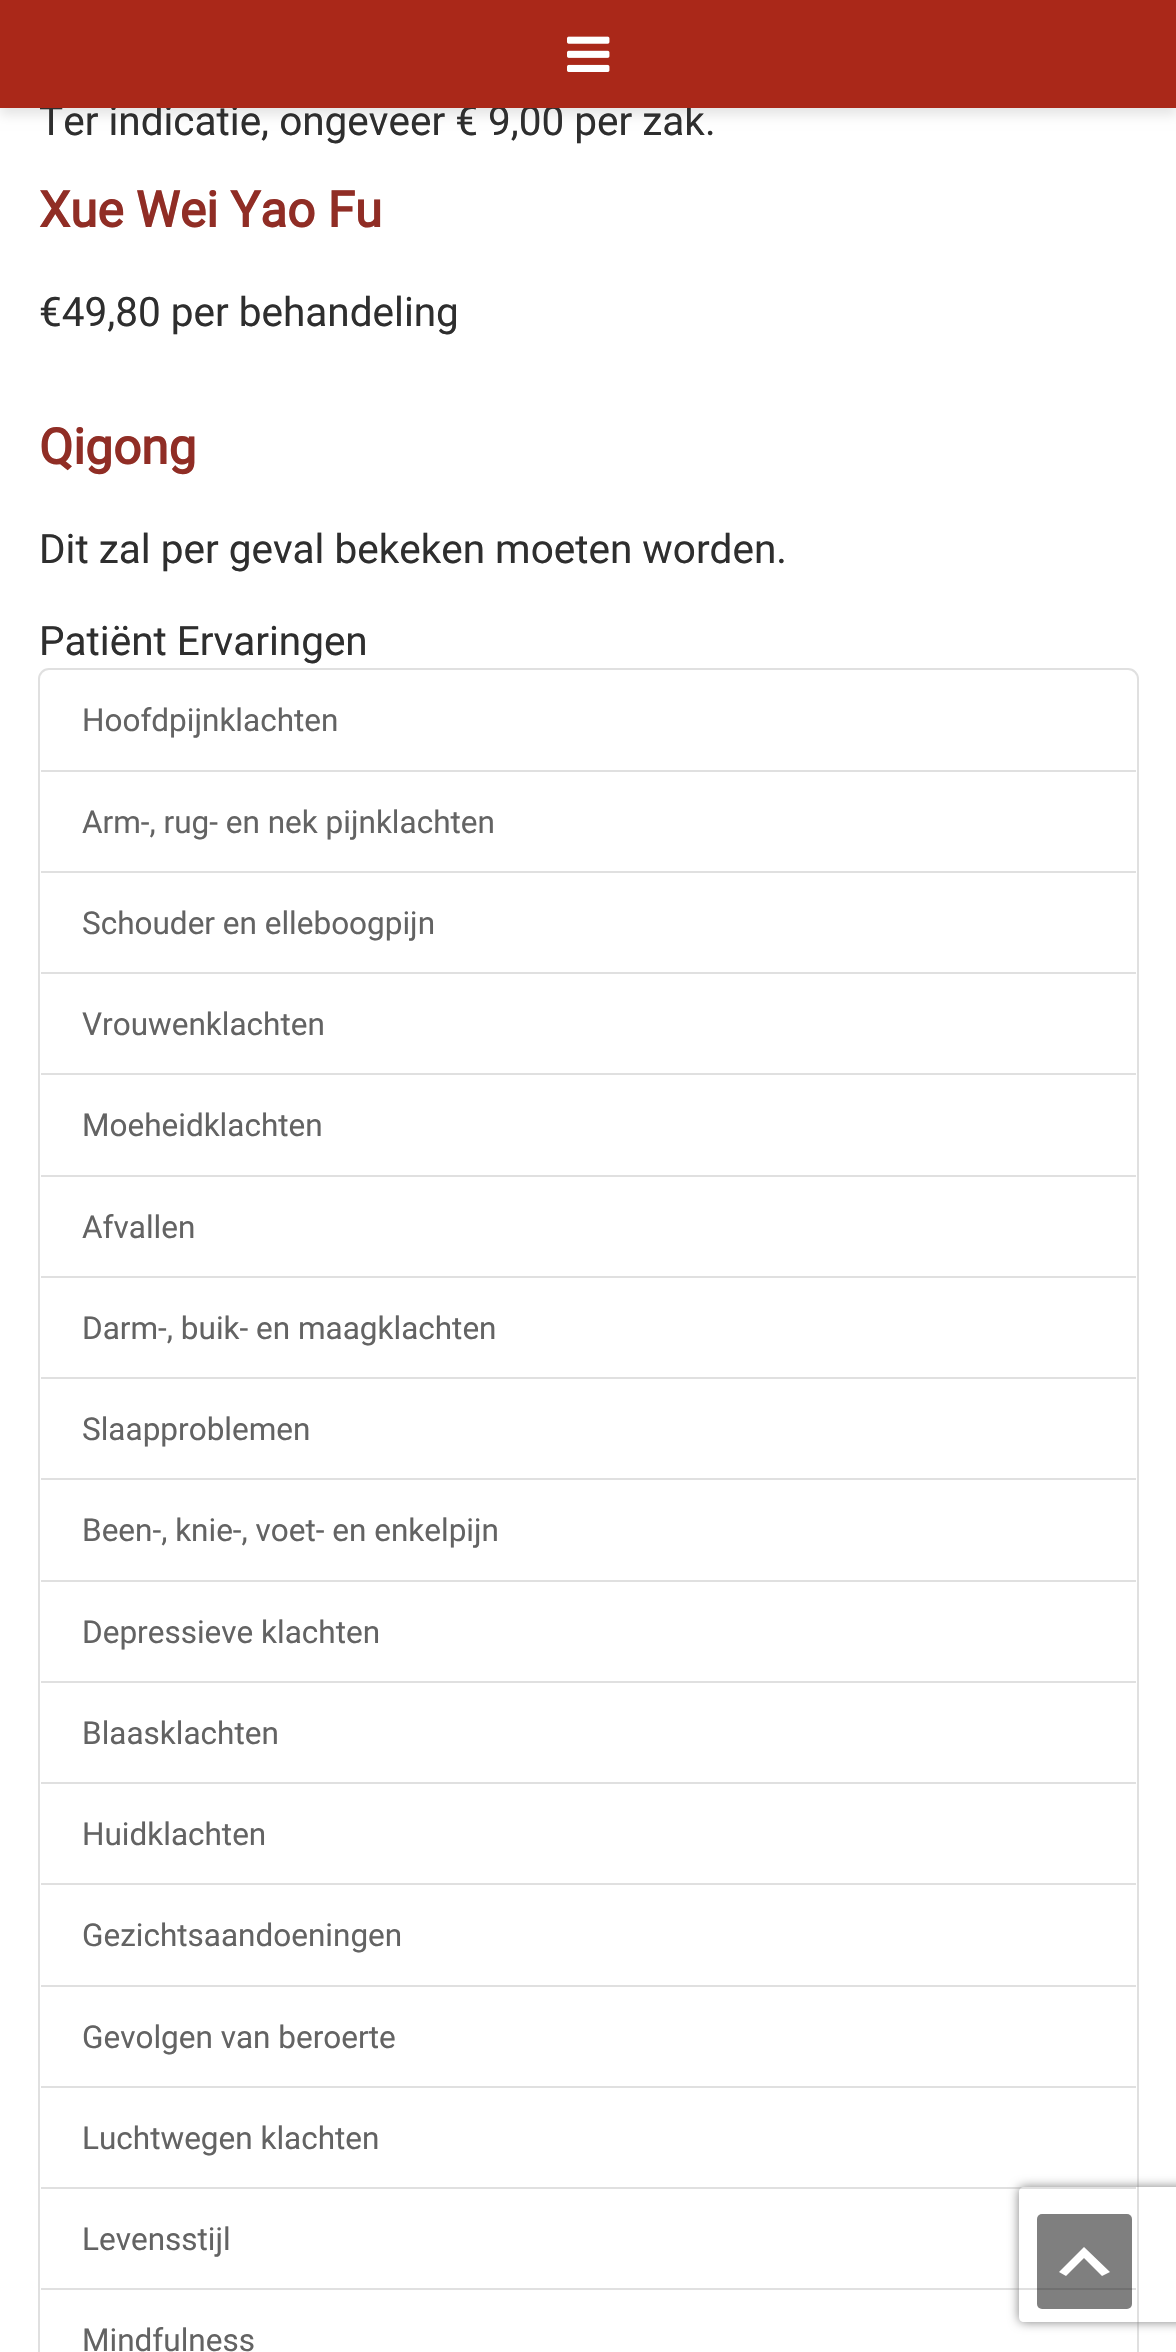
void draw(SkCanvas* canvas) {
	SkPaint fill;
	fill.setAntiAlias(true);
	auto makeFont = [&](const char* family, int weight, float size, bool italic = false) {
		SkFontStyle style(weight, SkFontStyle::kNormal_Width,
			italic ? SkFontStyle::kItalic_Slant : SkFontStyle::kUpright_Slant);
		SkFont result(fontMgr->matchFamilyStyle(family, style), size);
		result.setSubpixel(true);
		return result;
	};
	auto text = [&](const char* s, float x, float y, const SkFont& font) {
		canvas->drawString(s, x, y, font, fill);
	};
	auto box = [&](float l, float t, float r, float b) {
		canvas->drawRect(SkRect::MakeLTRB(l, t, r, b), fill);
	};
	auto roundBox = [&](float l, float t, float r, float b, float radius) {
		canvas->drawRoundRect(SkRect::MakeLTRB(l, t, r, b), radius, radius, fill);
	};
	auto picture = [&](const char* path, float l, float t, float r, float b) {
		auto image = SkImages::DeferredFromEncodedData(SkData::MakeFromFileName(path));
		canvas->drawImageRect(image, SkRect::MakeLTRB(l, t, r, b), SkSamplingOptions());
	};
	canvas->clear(0xFFFFFFFF);
	fill.setColor(0x1A000000);
	fill.setMaskFilter(SkMaskFilter::MakeBlur(kNormal_SkBlurStyle, 5.5f));
	canvas->drawRect(SkRect::MakeLTRB(0, 7, 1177, 115), fill);
	fill.setMaskFilter(nullptr);
	fill.setStyle(SkPaint::kStroke_Style);
	fill.setStrokeWidth(2);
	fill.setColor(0xFFE0E0E0);
	canvas->drawRoundRect(SkRect::MakeLTRB(39, 669, 1138, 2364), 10, 10, fill);
	fill.setStyle(SkPaint::kFill_Style);
	box(41, 770, 1136, 772);
	box(41, 871, 1136, 873);
	box(41, 972, 1136, 974);
	box(41, 1073, 1136, 1075);
	box(41, 1175, 1136, 1177);
	box(41, 1276, 1136, 1278);
	box(41, 1377, 1136, 1379);
	box(41, 1478, 1136, 1480);
	box(41, 1580, 1136, 1582);
	box(41, 1681, 1136, 1683);
	box(41, 1782, 1136, 1784);
	box(41, 1883, 1136, 1885);
	box(41, 1985, 1136, 1987);
	box(41, 2086, 1136, 2088);
	box(41, 2187, 1136, 2189);
	box(41, 2288, 1136, 2290);
	canvas->save();
	canvas->clipPath(SkPathBuilder(SkPathFillType::kEvenOdd).moveTo(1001, 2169).lineTo(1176, 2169).lineTo(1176, 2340).lineTo(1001, 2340).close().moveTo(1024, 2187).lineTo(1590, 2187).cubicTo(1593, 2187, 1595, 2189, 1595, 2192).lineTo(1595, 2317).cubicTo(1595, 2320, 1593, 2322, 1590, 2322).lineTo(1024, 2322).cubicTo(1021, 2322, 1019, 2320, 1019, 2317).lineTo(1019, 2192).cubicTo(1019, 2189, 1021, 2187, 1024, 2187).close().detach(), true);
	fill.setColor(0xFF808080);
	fill.setMaskFilter(SkMaskFilter::MakeBlur(kNormal_SkBlurStyle, 5.5f));
	canvas->drawRoundRect(SkRect::MakeLTRB(1019, 2187, 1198, 2322), 5, 5, fill);
	fill.setMaskFilter(nullptr);
	canvas->restore();
	fill.setColor(0x80000000);
	roundBox(1037, 2214, 1132, 2309, 5);
	fill.setColor(0xFFFFFFFF);
	canvas->drawPath(SkPathBuilder().moveTo(1102, 2276).lineTo(1084, 2258).lineTo(1066, 2276).lineTo(1059, 2272).lineTo(1084, 2247).lineTo(1110, 2272).close().detach(), fill);
	auto font1 = makeFont("Roboto", 400, 40.5f);
	fill.setColor(0xFF2E2E2E);
	text("Ter indicatie, ongeveer € 9,00 per zak.", 39, 135, font1);
	fill.setColor(0xFFAA2819);
	box(0, 0, 1176, 108);
	picture("image0.png", 567, 36, 610, 72);
	auto font2 = makeFont("Roboto", 700, 49.5f);
	fill.setColor(0xFF902D25);
	text("Xue Wei Yao Fu", 39, 227, font2);
	fill.setColor(0xFF2E2E2E);
	text("€49,80 per behandeling", 39, 326, font1);
	fill.setColor(0xFF902D25);
	text("Qigong", 39, 464, font2);
	fill.setColor(0xFF2E2E2E);
	text("Dit zal per geval bekeken moeten worden.", 39, 563, font1);
	text("Patiënt Ervaringen", 39, 655, font1);
	auto font3 = makeFont("Roboto", 400, 31.5f);
	fill.setColor(0xFF636363);
	text("Hoofdpijnklachten", 82, 731, font3);
	text("Arm-, rug- en nek pijnklachten", 82, 833, font3);
	text("Schouder en elleboogpijn", 82, 934, font3);
	text("Vrouwenklachten", 82, 1035, font3);
	text("Moeheidklachten", 82, 1136, font3);
	text("Afvallen", 82, 1238, font3);
	text("Darm-, buik- en maagklachten", 82, 1339, font3);
	text("Slaapproblemen", 82, 1440, font3);
	text("Been-, knie-, voet- en enkelpijn", 82, 1541, font3);
	text("Depressieve klachten", 82, 1643, font3);
	text("Blaasklachten", 82, 1744, font3);
	text("Huidklachten", 82, 1845, font3);
	text("Gezichtsaandoeningen", 82, 1946, font3);
	text("Gevolgen van beroerte", 82, 2048, font3);
	text("Luchtwegen klachten", 82, 2149, font3);
	text("Levensstijl", 82, 2250, font3);
	text("Mindfulness", 82, 2351, font3);
}
